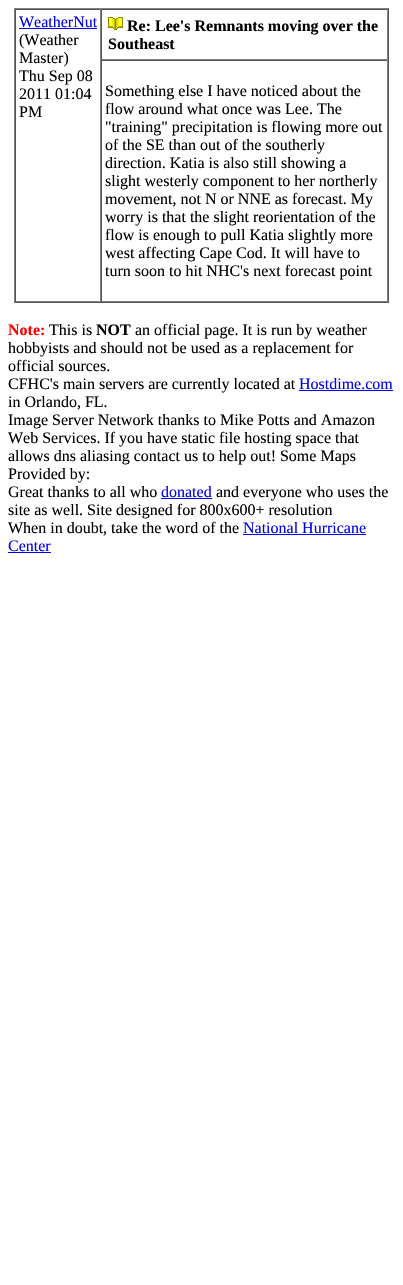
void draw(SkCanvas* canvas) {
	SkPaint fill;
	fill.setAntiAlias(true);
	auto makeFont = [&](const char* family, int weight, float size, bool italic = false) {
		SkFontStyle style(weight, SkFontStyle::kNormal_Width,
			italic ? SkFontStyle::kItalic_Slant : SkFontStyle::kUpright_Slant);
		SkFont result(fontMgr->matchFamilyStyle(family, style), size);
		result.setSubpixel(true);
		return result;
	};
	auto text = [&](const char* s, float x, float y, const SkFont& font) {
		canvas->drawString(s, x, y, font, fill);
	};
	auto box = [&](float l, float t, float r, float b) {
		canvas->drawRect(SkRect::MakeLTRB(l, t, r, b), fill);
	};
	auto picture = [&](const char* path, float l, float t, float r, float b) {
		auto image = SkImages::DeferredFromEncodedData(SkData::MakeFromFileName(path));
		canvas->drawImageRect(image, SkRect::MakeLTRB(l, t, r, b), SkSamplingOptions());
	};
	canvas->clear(0xFFFFFFFF);
	fill.setColor(0xFF808080);
	box(14, 8, 389, 9);
	fill.setColor(0xFF555555);
	box(388, 8, 389, 303);
	box(14, 302, 389, 303);
	fill.setColor(0xFF808080);
	box(14, 8, 15, 303);
	fill.setColor(0xFF555555);
	box(15, 9, 388, 10);
	fill.setColor(0xFF808080);
	box(100, 9, 101, 302);
	box(15, 301, 101, 302);
	fill.setColor(0xFF555555);
	box(15, 9, 16, 302);
	fill.setColor(0xFF0000EE);
	box(19, 28, 97, 29);
	fill.setColor(0xFF808080);
	box(387, 9, 388, 60);
	box(101, 59, 388, 60);
	fill.setColor(0xFF555555);
	box(101, 9, 102, 60);
	picture("image0.png", 108, 17, 123, 30);
	box(101, 60, 388, 61);
	fill.setColor(0xFF808080);
	box(387, 60, 388, 302);
	box(101, 301, 388, 302);
	fill.setColor(0xFF555555);
	box(101, 60, 102, 302);
	fill.setColor(0xFF0000EE);
	box(299, 390, 393, 391);
	box(161, 498, 212, 499);
	box(243, 534, 366, 535);
	box(8, 552, 51, 553);
	auto font1 = makeFont("Liberation Serif", 400, 16);
	text("WeatherNut", 19, 27, font1);
	fill.setColor(0xFF000000);
	text("(Weather", 19, 45, font1);
	text("Master)", 19, 63, font1);
	text("Thu Sep 08", 19, 81, font1);
	text("2011 01:04", 19, 99, font1);
	text("PM", 19, 117, font1);
	auto font2 = makeFont("Liberation Serif", 700, 16);
	text("Re: Lee's Remnants moving over the", 127, 31, font2);
	text("Southeast", 108, 49, font2);
	text("Something else I have noticed about the", 105, 96, font1);
	text("flow around what once was Lee. The", 105, 114, font1);
	text("\"training\" precipitation is flowing more out", 105, 132, font1);
	text("of the SE than out of the southerly", 105, 150, font1);
	text("direction. Katia is also still showing a", 105, 168, font1);
	text("slight westerly component to her northerly", 105, 186, font1);
	text("movement, not N or NNE as forecast. My", 105, 204, font1);
	text("worry is that the slight reorientation of the", 105, 222, font1);
	text("flow is enough to pull Katia slightly more", 105, 240, font1);
	text("west affecting Cape Cod. It will have to", 105, 258, font1);
	text("turn soon to hit NHC's next forecast point", 105, 276, font1);
	fill.setColor(0xFFFF0000);
	text("Note:", 8, 335, font2);
	fill.setColor(0xFF000000);
	text("This is", 49, 335, font1);
	text("NOT", 96, 335, font2);
	text("an official page. It is run by weather", 135, 335, font1);
	text("hobbyists and should not be used as a replacement for", 8, 353, font1);
	text("official sources.", 8, 371, font1);
	text("CFHC's main servers are currently located at", 8, 389, font1);
	fill.setColor(0xFF0000EE);
	text("Hostdime.com", 299, 389, font1);
	fill.setColor(0xFF000000);
	text("in Orlando, FL.", 8, 407, font1);
	text("Image Server Network thanks to Mike Potts and Amazon", 8, 425, font1);
	text("Web Services. If you have static file hosting space that", 8, 443, font1);
	text("allows dns aliasing contact us to help out! Some Maps", 8, 461, font1);
	text("Provided by:", 8, 479, font1);
	text("Great thanks to all who", 8, 497, font1);
	fill.setColor(0xFF0000EE);
	text("donated", 161, 497, font1);
	fill.setColor(0xFF000000);
	text("and everyone who uses the", 216, 497, font1);
	text("site as well. Site designed for 800x600+ resolution", 8, 515, font1);
	text("When in doubt, take the word of the", 8, 533, font1);
	fill.setColor(0xFF0000EE);
	text("National Hurricane", 243, 533, font1);
	text("Center", 8, 551, font1);
}
